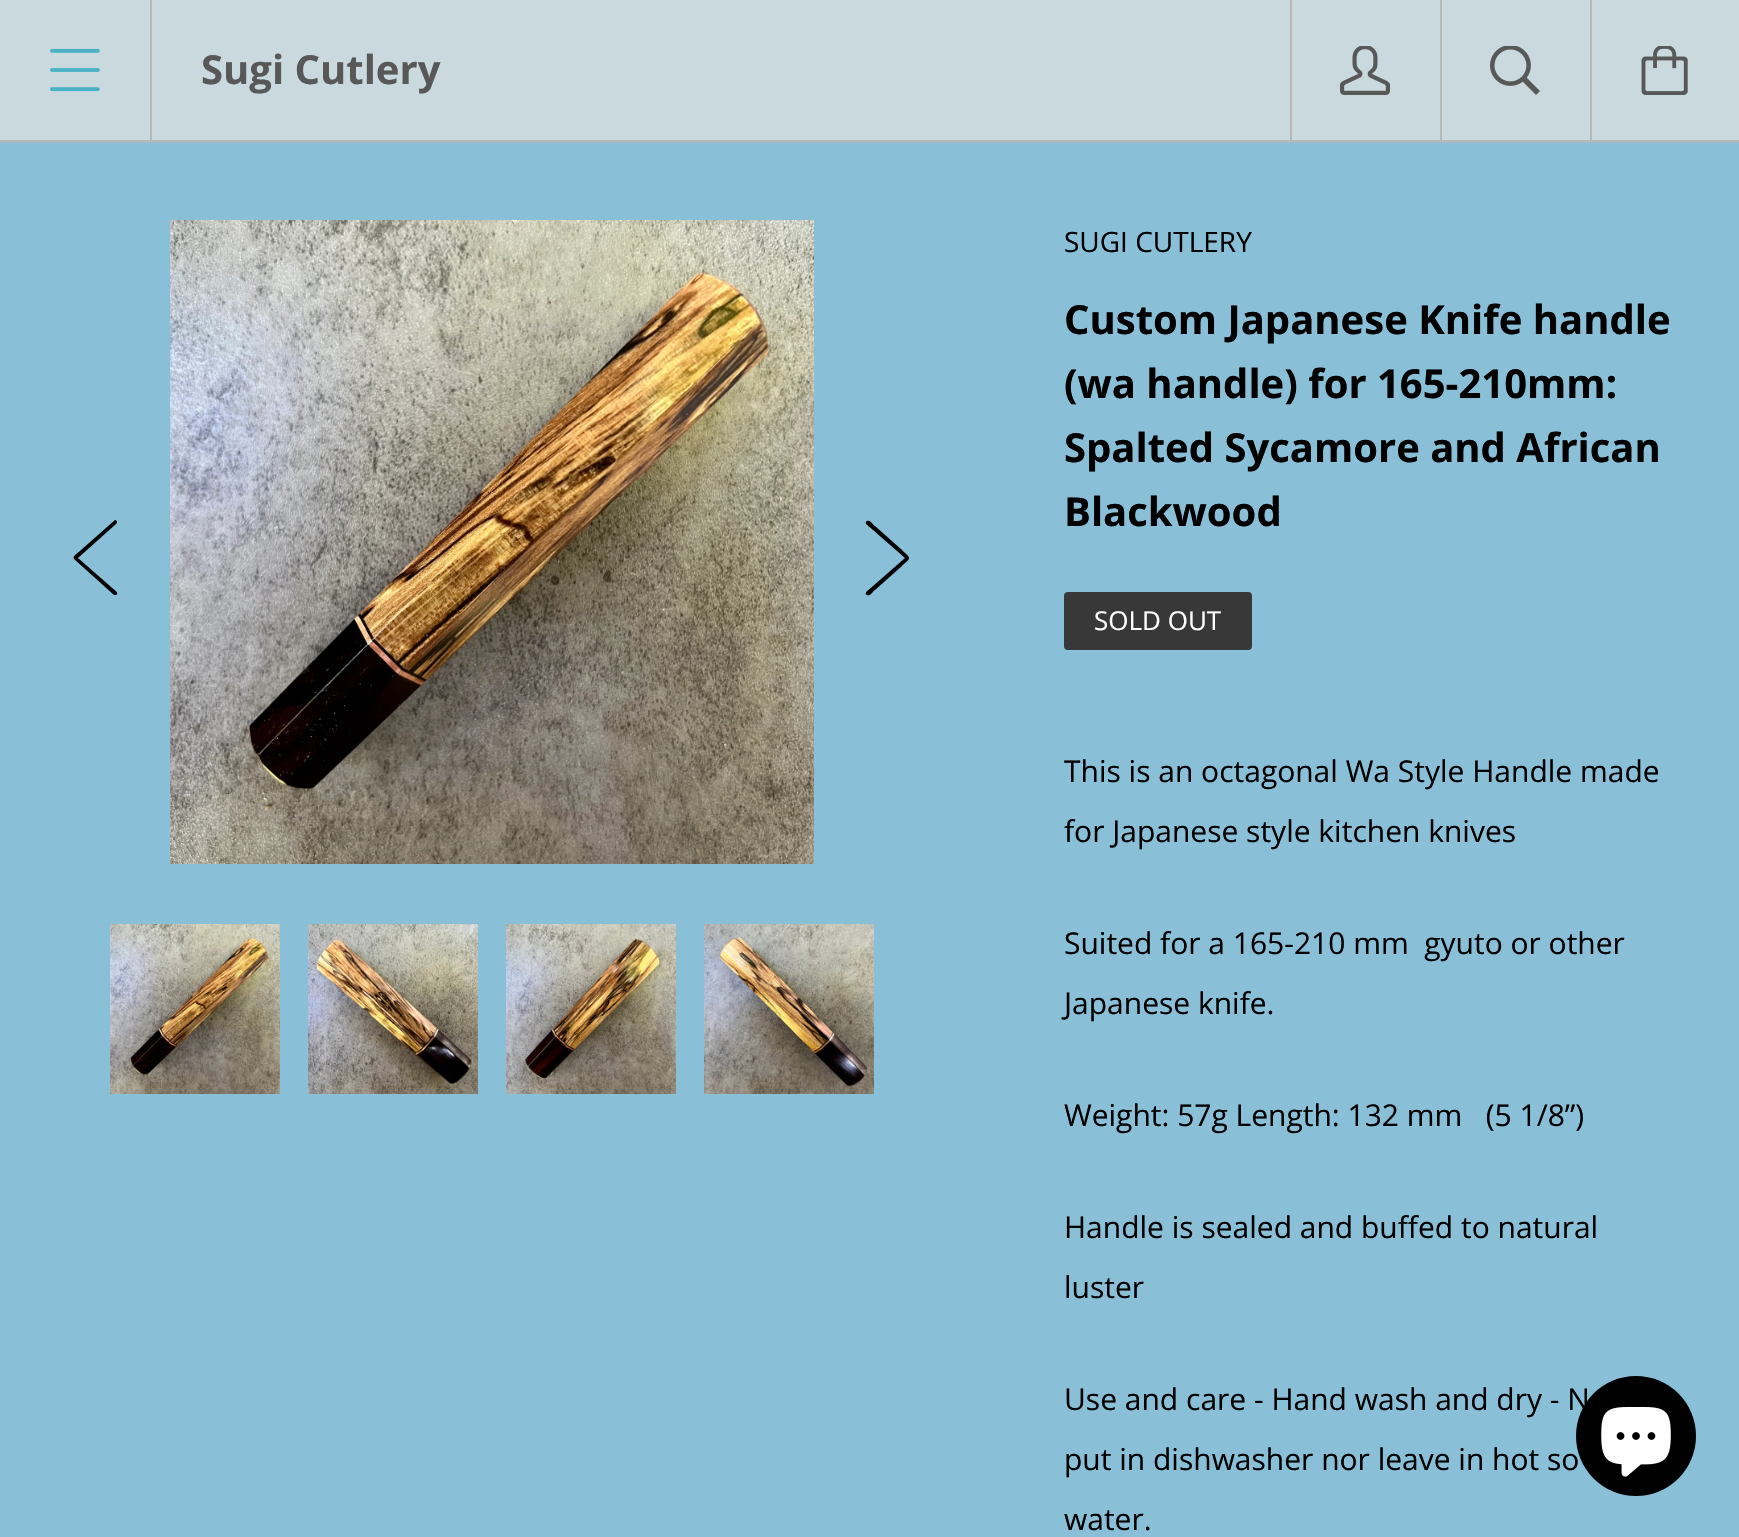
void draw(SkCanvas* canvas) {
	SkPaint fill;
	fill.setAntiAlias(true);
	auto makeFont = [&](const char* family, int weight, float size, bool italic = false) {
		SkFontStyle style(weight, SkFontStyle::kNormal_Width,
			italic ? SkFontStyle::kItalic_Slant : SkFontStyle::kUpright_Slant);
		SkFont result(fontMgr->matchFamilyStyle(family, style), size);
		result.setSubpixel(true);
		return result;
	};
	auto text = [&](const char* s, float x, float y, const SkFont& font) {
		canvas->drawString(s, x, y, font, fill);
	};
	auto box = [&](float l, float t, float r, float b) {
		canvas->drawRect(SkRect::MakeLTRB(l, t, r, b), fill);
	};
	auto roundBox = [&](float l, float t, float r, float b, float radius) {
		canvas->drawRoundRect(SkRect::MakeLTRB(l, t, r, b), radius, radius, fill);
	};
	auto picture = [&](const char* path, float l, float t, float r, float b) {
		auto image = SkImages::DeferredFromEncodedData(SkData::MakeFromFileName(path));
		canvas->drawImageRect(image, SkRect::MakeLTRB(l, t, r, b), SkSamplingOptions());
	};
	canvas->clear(0xFF89BFD7);
	fill.setColor(0x4DB7B7B7);
	box(0, 142, 1739, 144);
	fill.setColor(0xFFC9D9DE);
	box(0, 0, 1739, 140);
	fill.setColor(0xFFB7B7B7);
	box(0, 140, 1739, 142);
	picture("image0.png", 50, 48, 100, 92);
	box(150, 0, 152, 140);
	box(1290, 0, 1292, 140);
	picture("image1.png", 1340, 46, 1390, 95);
	box(1440, 0, 1442, 140);
	picture("image2.png", 1490, 46, 1540, 95);
	box(1590, 0, 1592, 140);
	picture("image3.png", 1641, 46, 1688, 95);
	fill.setColor(0xFF000000);
	canvas->drawPath(SkPathBuilder().moveTo(116, 524).lineTo(78, 558).lineTo(110, 586).cubicTo(114, 590, 120, 593, 116, 595).lineTo(114, 595).lineTo(74, 559).cubicTo(72, 556, 78, 553, 81, 550).lineTo(115, 520).cubicTo(117, 520, 118, 523, 116, 524).close().detach(), fill);
	picture("image4.png", 170, 220, 814, 864);
	canvas->drawPath(SkPathBuilder().moveTo(909, 558).cubicTo(909, 561, 902, 565, 902, 566).lineTo(875, 590).cubicTo(874, 590, 870, 597, 867, 595).cubicTo(863, 593, 869, 590, 873, 586).lineTo(905, 558).lineTo(873, 530).cubicTo(869, 526, 863, 523, 867, 521).cubicTo(870, 519, 874, 526, 875, 526).lineTo(902, 550).cubicTo(902, 551, 909, 555, 909, 558).close().detach(), fill);
	picture("image5.png", 110, 924, 280, 1094);
	picture("image6.png", 308, 924, 478, 1094);
	picture("image7.png", 506, 924, 676, 1094);
	picture("image8.png", 704, 924, 874, 1094);
	fill.setColor(0xFF383838);
	roundBox(1064, 592, 1252, 650, 4);
	fill.setColor(0xFF000000);
	canvas->drawCircle(1636, 1436, 60, fill);
	picture("image9.png", 1601, 1407, 1671, 1477);
	auto font1 = makeFont("Open Sans", 700, 40);
	fill.setColor(0xFF585858);
	text("Sugi Cutlery", 201, 84, font1);
	auto font2 = makeFont("Open Sans", 400, 28);
	fill.setColor(0xFF000000);
	text("SUGI CUTLERY", 1064, 252, font2);
	text("Custom Japanese Knife handle", 1064, 334, font1);
	text("(wa handle) for 165-210mm:", 1064, 398, font1);
	text("Spalted Sycamore and African", 1064, 462, font1);
	text("Blackwood", 1064, 526, font1);
	auto font3 = makeFont("Open Sans", 400, 26);
	fill.setColor(0xFFFFFFFF);
	text("SOLD OUT", 1094, 630, font3);
	auto font4 = makeFont("Open Sans", 400, 30);
	fill.setColor(0xFF000000);
	text("This is an octagonal Wa Style Handle made", 1064, 782, font4);
	text("for Japanese style kitchen knives", 1064, 842, font4);
	text("Suited for a 165-210 mm  gyuto or other", 1064, 954, font4);
	text("Japanese knife.", 1064, 1014, font4);
	text("Weight: 57g Length: 132 mm   (5 1/8”)", 1064, 1126, font4);
	text("Handle is sealed and buffed to natural", 1064, 1238, font4);
	text("luster", 1064, 1298, font4);
	text("Use and care - Hand wash and dry - N", 1064, 1410, font4);
	text("put in dishwasher nor leave in hot so", 1064, 1470, font4);
	text("water.", 1064, 1530, font4);
}
